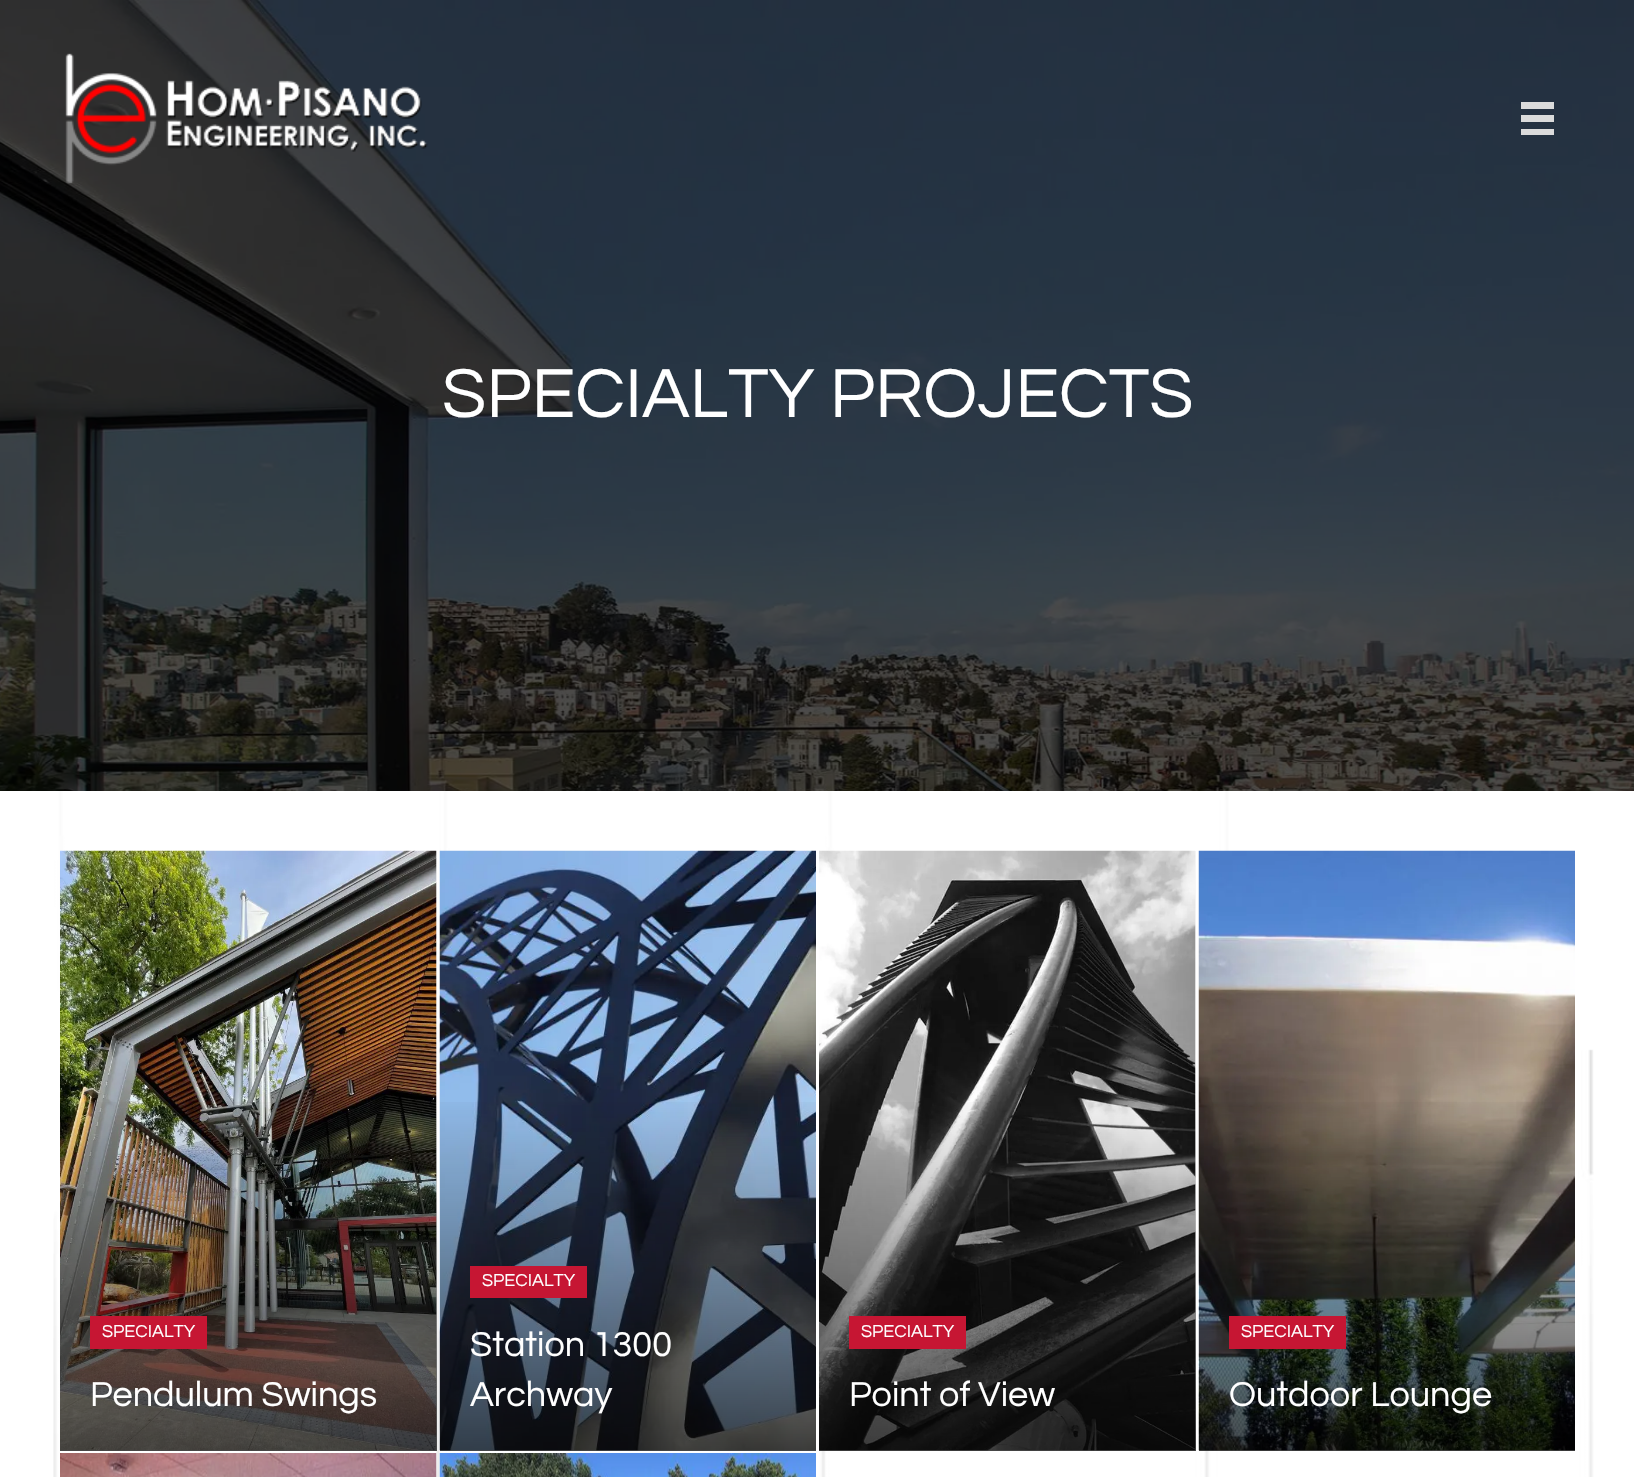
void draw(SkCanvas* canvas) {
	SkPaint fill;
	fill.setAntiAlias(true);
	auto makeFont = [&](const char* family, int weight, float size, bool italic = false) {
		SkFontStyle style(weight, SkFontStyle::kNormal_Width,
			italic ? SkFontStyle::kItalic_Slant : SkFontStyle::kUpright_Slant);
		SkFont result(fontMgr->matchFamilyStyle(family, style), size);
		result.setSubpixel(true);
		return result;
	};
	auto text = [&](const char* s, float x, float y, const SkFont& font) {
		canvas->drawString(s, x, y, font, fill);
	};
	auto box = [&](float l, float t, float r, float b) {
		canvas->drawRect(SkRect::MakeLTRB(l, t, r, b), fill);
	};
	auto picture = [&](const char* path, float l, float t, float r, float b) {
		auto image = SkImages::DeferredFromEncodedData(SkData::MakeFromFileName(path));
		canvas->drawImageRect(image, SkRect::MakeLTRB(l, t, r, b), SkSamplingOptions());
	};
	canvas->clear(0xFFFFFFFF);
	picture("image0.png", 53, 791, 1594, 1477);
	picture("image2.png", 0, 0, 1634, 791);
	picture("image1.png", 65, 53, 428, 184);
	fill.setColor(0xFFDBDBDB);
	box(1521, 102, 1554, 109);
	box(1521, 115, 1554, 122);
	box(1521, 129, 1554, 135);
	fill.setColor(0xFFF7F7F7);
	box(60, 851, 437, 1451);
	picture("image3.png", 60, 850, 437, 1451);
	{
		const SkColor colors[] = {0x00000000, 0xB3000000};
		const float stops[] = {0.4f, 1};
		const SkPoint ends[] = {{248, 851}, {248, 1451}};
		fill.setShader(SkGradientShader::MakeLinear(ends, colors, stops, 2, SkTileMode::kClamp));
		fill.setAlpha(255);
	}
	box(60, 1102, 437, 1451);
	fill.setShader(nullptr);
	fill.setColor(0xFFC61633);
	box(90, 1316, 207, 1349);
	fill.setColor(0xFFF7F7F7);
	box(440, 1450, 816, 1451);
	picture("image4.png", 439, 850, 816, 1451);
	{
		const SkColor colors[] = {0x00000000, 0xB3000000};
		const float stops[] = {0.4f, 1};
		const SkPoint ends[] = {{628, 851}, {628, 1451}};
		fill.setShader(SkGradientShader::MakeLinear(ends, colors, stops, 2, SkTileMode::kClamp));
		fill.setAlpha(255);
	}
	box(440, 1102, 816, 1451);
	fill.setShader(nullptr);
	fill.setColor(0xFFC61633);
	box(470, 1266, 587, 1298);
	fill.setColor(0xFFF7F7F7);
	box(819, 851, 1196, 1451);
	picture("image5.png", 819, 850, 1196, 1451);
	{
		const SkColor colors[] = {0x00000000, 0xB3000000};
		const float stops[] = {0.4f, 1};
		const SkPoint ends[] = {{1007, 851}, {1007, 1451}};
		fill.setShader(SkGradientShader::MakeLinear(ends, colors, stops, 2, SkTileMode::kClamp));
		fill.setAlpha(255);
	}
	box(819, 1102, 1196, 1451);
	fill.setShader(nullptr);
	fill.setColor(0xFFC61633);
	box(849, 1316, 966, 1349);
	fill.setColor(0xFFF7F7F7);
	box(1199, 1450, 1575, 1451);
	picture("image6.png", 1198, 850, 1575, 1451);
	{
		const SkColor colors[] = {0x00000000, 0xB3000000};
		const float stops[] = {0.4f, 1};
		const SkPoint ends[] = {{1387, 851}, {1387, 1451}};
		fill.setShader(SkGradientShader::MakeLinear(ends, colors, stops, 2, SkTileMode::kClamp));
		fill.setAlpha(255);
	}
	box(1199, 1102, 1575, 1451);
	fill.setShader(nullptr);
	fill.setColor(0xFFC61633);
	box(1229, 1316, 1346, 1349);
	picture("image7.png", 60, 1453, 437, 1477);
	picture("image8.png", 439, 1453, 816, 1477);
	auto font1 = makeFont("Questrial", 400, 72);
	fill.setColor(0xFFFFFFFF);
	text("SPECIALTY PROJECTS", 442, 417, font1);
	auto font2 = makeFont("Questrial", 400, 18);
	text("SPECIALTY", 102, 1337, font2);
	auto font3 = makeFont("Questrial", 400, 36);
	text("Pendulum Swings", 90, 1406, font3);
	text("SPECIALTY", 482, 1286, font2);
	text("Station 1300", 470, 1356, font3);
	text("Archway", 470, 1406, font3);
	text("SPECIALTY", 861, 1337, font2);
	text("Point of View", 849, 1406, font3);
	text("SPECIALTY", 1241, 1337, font2);
	text("Outdoor Lounge", 1229, 1406, font3);
}
